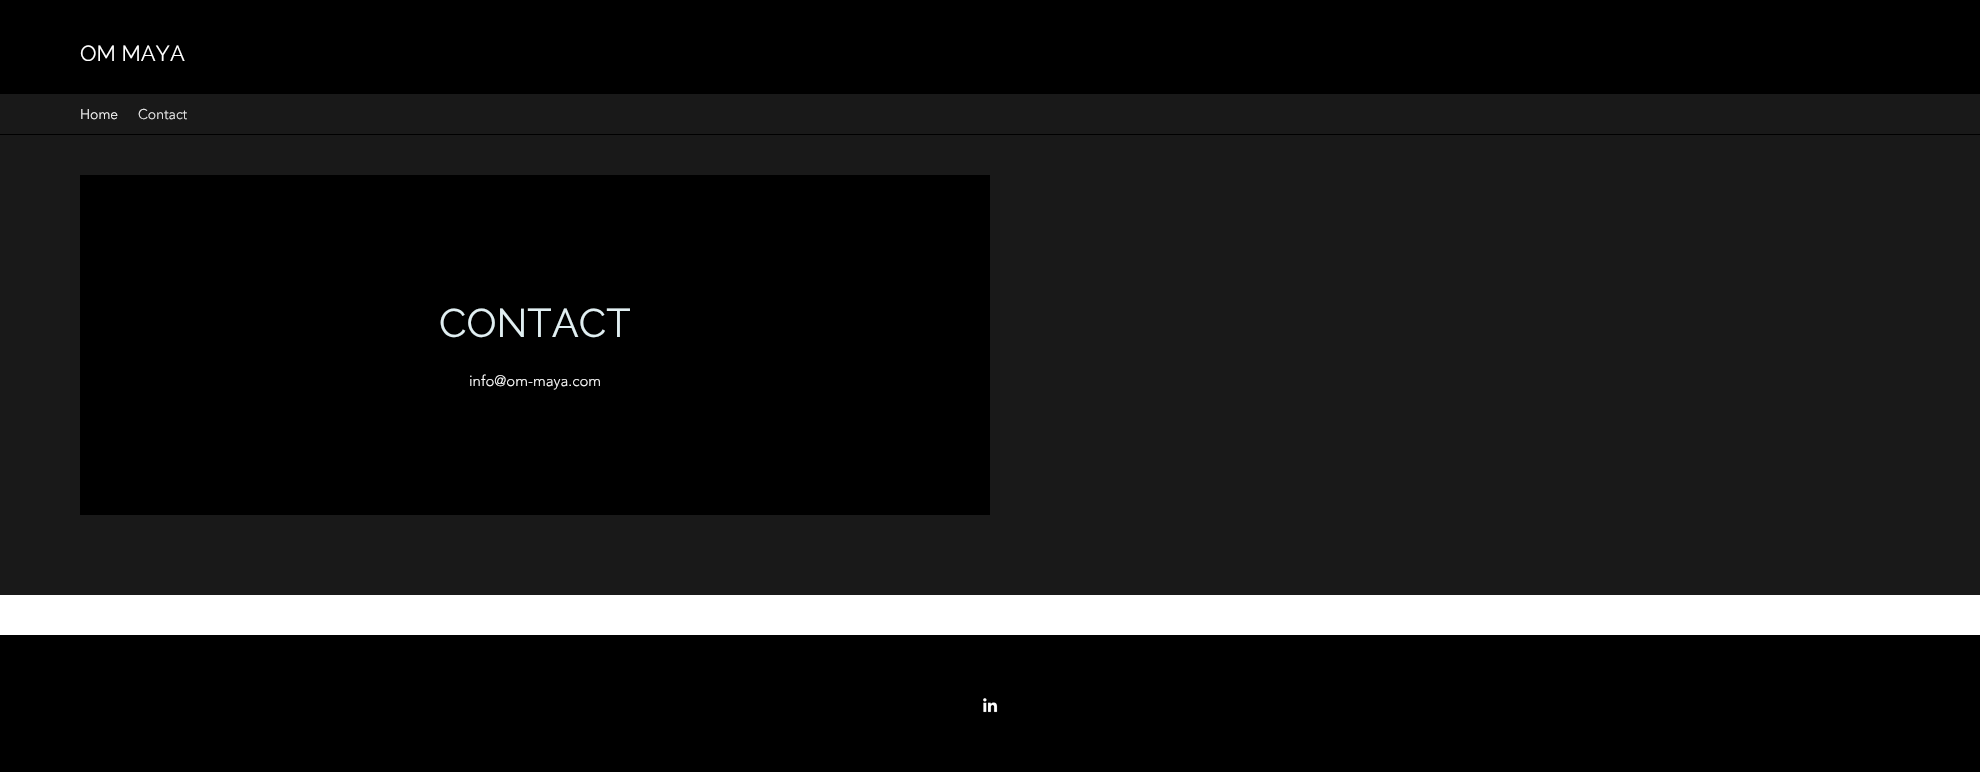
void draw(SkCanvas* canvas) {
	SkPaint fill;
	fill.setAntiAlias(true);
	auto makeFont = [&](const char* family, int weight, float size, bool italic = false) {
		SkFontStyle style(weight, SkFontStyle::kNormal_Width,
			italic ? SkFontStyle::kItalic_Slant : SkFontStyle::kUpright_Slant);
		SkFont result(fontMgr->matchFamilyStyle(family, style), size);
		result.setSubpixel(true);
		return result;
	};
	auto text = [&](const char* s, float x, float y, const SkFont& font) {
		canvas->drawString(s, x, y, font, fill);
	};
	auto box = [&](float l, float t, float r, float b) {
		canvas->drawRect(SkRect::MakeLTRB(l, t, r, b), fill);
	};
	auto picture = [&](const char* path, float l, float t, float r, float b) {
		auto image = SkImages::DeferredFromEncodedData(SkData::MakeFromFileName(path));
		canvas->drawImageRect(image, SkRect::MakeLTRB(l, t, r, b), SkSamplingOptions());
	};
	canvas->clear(0xFFFFFFFF);
	fill.setColor(0xFF000000);
	box(0, 0, 1980, 135);
	fill.setColor(0xFF191919);
	box(0, 94, 1980, 134);
	box(0, 135, 1980, 595);
	fill.setColor(0xFF000000);
	box(80, 175, 990, 515);
	box(0, 635, 1980, 772);
	picture("image0.png", 983, 698, 998, 713);
	auto font1 = makeFont("Raleway", 400, 22);
	fill.setColor(0xFFFFFFFF);
	text("OM MAYA", 80, 61, font1);
	auto font2 = makeFont("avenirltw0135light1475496", 300, 14);
	text("Home", 80, 119, font2);
	fill.setColor(0xFFF1F1F1);
	text("Contact", 138, 119, font2);
	auto font3 = makeFont("Raleway", 400, 40);
	fill.setColor(0xFFE1EFF2);
	text("CONTACT", 439, 337, font3);
	auto font4 = makeFont("avenirltw0135light1475496", 300, 15);
	fill.setColor(0xFFFFFFFF);
	text("info@om-maya.com", 469, 386, font4);
}
